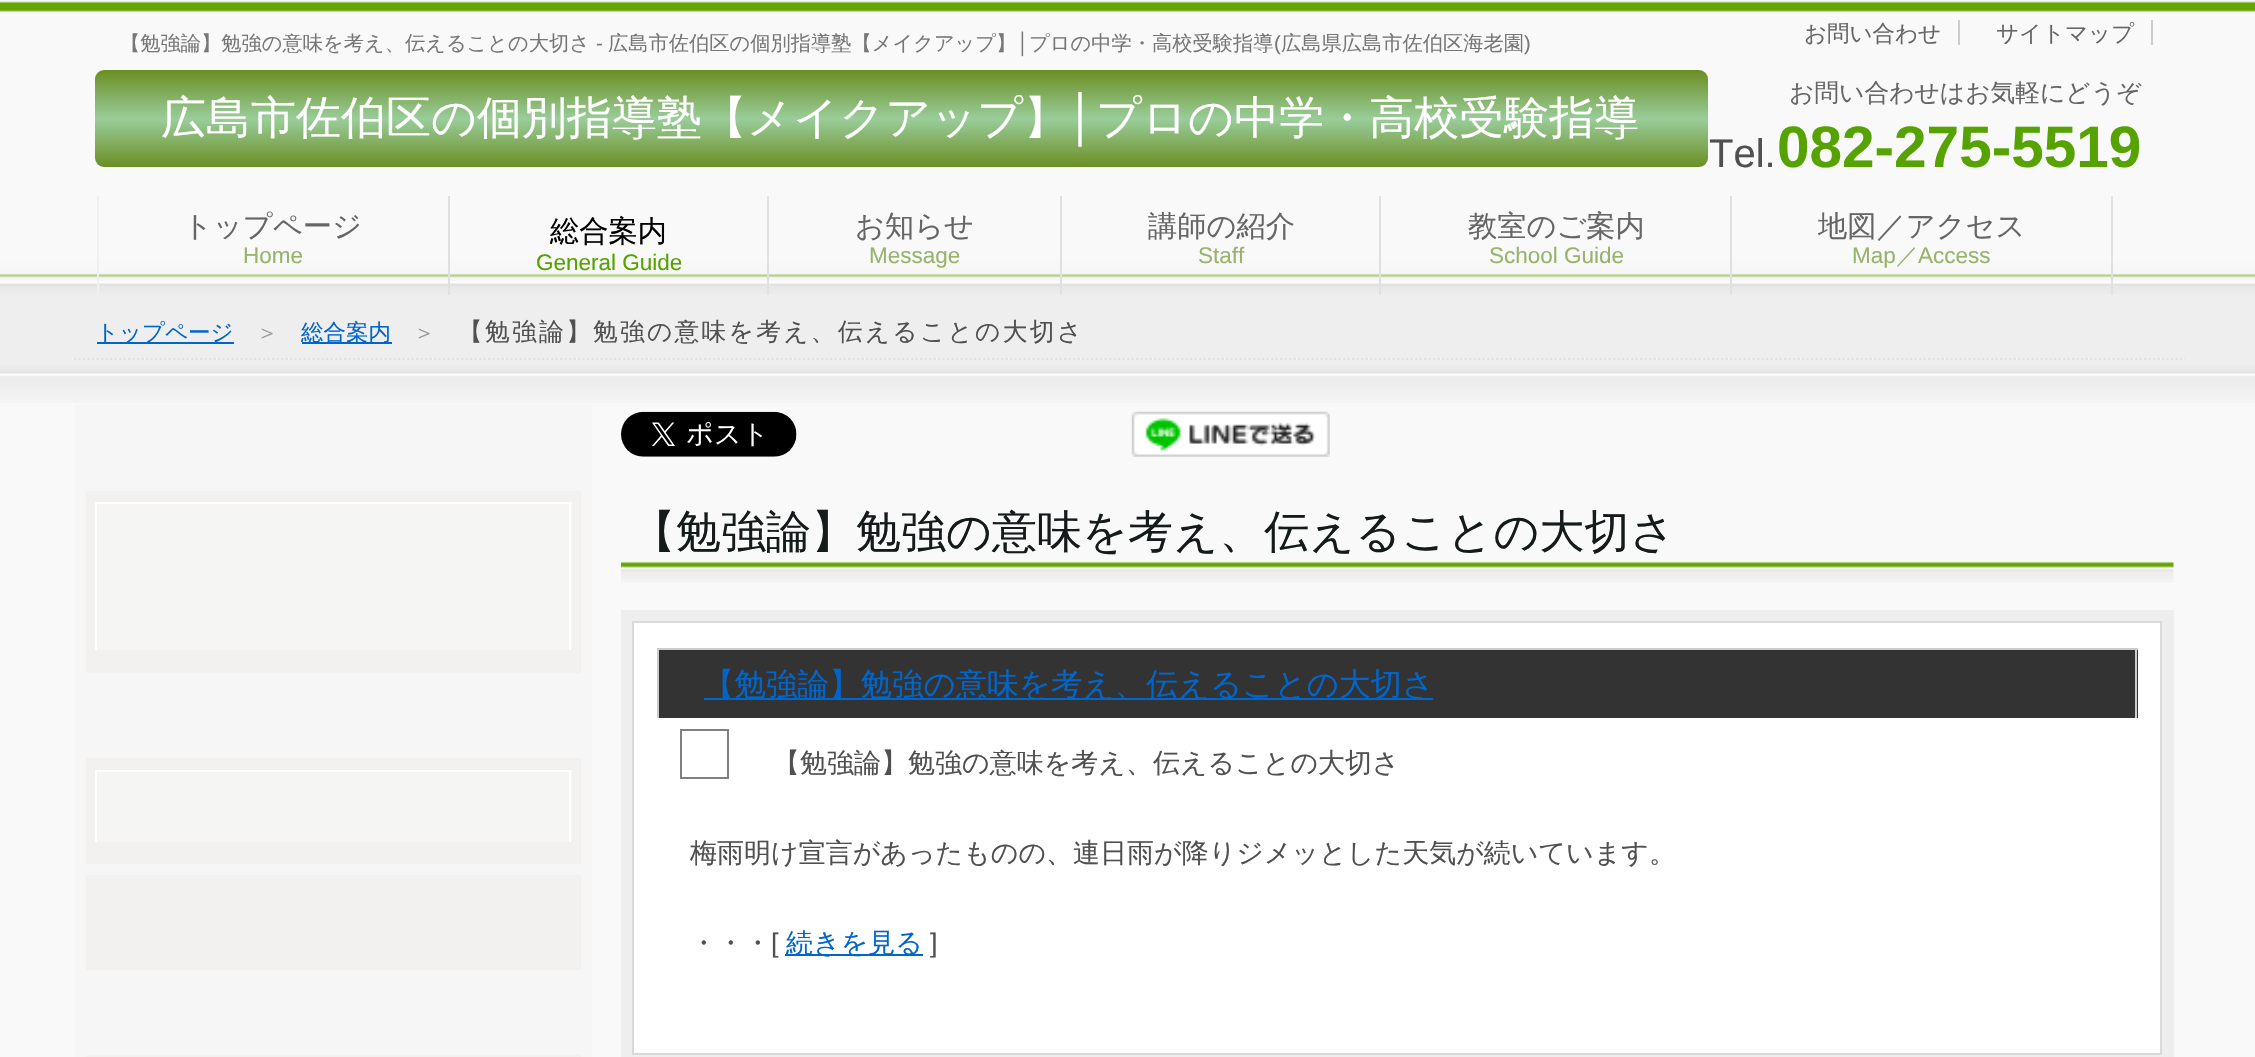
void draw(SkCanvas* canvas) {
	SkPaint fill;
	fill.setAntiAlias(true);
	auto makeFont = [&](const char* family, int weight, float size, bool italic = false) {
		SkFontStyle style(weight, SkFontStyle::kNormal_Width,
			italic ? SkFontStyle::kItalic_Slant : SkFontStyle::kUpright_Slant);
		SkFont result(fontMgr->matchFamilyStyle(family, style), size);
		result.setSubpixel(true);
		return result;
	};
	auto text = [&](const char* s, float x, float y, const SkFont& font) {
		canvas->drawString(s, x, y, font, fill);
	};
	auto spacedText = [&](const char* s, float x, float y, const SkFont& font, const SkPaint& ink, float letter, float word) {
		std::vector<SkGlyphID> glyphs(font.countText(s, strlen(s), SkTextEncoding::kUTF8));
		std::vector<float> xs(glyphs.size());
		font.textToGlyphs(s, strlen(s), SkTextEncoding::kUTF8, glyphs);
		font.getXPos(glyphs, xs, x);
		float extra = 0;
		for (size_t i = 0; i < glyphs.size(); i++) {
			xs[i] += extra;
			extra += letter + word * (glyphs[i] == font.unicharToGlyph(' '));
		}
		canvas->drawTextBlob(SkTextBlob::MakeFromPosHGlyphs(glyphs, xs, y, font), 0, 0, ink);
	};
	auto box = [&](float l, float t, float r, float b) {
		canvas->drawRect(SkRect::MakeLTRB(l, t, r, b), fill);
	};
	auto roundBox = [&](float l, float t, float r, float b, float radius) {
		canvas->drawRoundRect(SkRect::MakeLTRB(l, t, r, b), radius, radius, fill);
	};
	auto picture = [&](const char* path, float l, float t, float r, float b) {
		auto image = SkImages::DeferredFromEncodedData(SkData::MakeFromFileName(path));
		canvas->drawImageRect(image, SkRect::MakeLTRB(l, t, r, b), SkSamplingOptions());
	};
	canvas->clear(0xFFF9F9F9);
	picture("image0.png", 0, 1, 2255, 403);
	fill.setColor(0xFFCCCCCC);
	box(1958, 20, 1960, 45);
	box(2151, 20, 2153, 45);
	{
		const SkColor colors[] = {0xFF6B8E23, 0xFF99CC99, 0xFF99CC99, 0xFF6B8E23};
		const float stops[] = {0, 0.5f, 0.51f, 1};
		const SkPoint ends[] = {{901, 70}, {901, 167}};
		fill.setShader(SkGradientShader::MakeLinear(ends, colors, stops, 4, SkTileMode::kClamp));
		fill.setAlpha(255);
	}
	roundBox(95, 70, 1708, 167, 9);
	fill.setShader(nullptr);
	fill.setColor(0xFFF0F0F0);
	box(97, 196, 99, 295);
	fill.setColor(0xFFE0E0E0);
	box(448, 196, 450, 295);
	box(767, 196, 769, 295);
	box(1060, 196, 1062, 295);
	box(1379, 196, 1381, 295);
	box(1730, 196, 1732, 295);
	box(2111, 196, 2113, 295);
	fill.setStyle(SkPaint::kStroke_Style);
	fill.setStrokeWidth(2.2f);
	fill.setColor(0xFFE1E1E1);
	fill.setPathEffect(SkDashPathEffect::Make({{2.25f, 2.25f}}, 0));
	canvas->drawPath(SkPathBuilder().moveTo(74, 359).lineTo(2185, 359).detach(), fill);
	fill.setPathEffect(nullptr);
	fill.setStyle(SkPaint::kFill_Style);
	fill.setColor(0xFF0066CC);
	box(97, 342, 234, 344);
	box(302, 342, 392, 344);
	fill.setColor(0xFFF6F6F6);
	box(74, 405, 592, 1057);
	fill.setColor(0xFFF2F1EF);
	box(86, 491, 581, 673);
	fill.setColor(0xFFF5F5F4);
	box(97, 504, 572, 650);
	fill.setColor(0xFFFFFFFF);
	box(95, 502, 572, 504);
	box(569, 502, 571, 650);
	box(95, 502, 97, 650);
	fill.setColor(0xFFF2F1EF);
	box(86, 758, 581, 864);
	fill.setColor(0xFFF5F5F4);
	box(97, 772, 572, 842);
	fill.setColor(0xFFFFFFFF);
	box(95, 770, 572, 772);
	box(569, 770, 571, 842);
	box(95, 770, 97, 842);
	fill.setColor(0xFFF2F1EF);
	box(86, 875, 581, 970);
	box(86, 1055, 581, 1057);
	picture("image1.png", 621, 411, 797, 457);
	picture("image2.png", 1131, 411, 1330, 457);
	picture("image3.png", 621, 561, 2174, 583);
	fill.setColor(0xFFEEEEEE);
	box(621, 610, 2174, 1057);
	fill.setColor(0xFFFFFFFF);
	canvas->drawRect(SkRect::MakeLTRB(633, 622, 2161, 1054), fill);
	fill.setStyle(SkPaint::kStroke_Style);
	fill.setStrokeWidth(2);
	fill.setColor(0xFFD9D9D9);
	canvas->drawRect(SkRect::MakeLTRB(633, 622, 2161, 1054), fill);
	fill.setStyle(SkPaint::kFill_Style);
	fill.setColor(0xFF333333);
	box(659, 650, 2138, 718);
	fill.setColor(0xFFCCCCCC);
	box(657, 648, 2138, 650);
	box(2135, 648, 2137, 718);
	box(657, 648, 659, 718);
	fill.setColor(0xFF0066CC);
	box(704, 698, 1433, 700);
	fill.setStyle(SkPaint::kStroke_Style);
	fill.setColor(0xFF808080);
	canvas->drawRect(SkRect::MakeLTRB(681, 730, 728, 778), fill);
	fill.setStyle(SkPaint::kFill_Style);
	fill.setColor(0xFF0066CC);
	box(785, 954, 923, 956);
	auto font1 = makeFont("WenQuanYi Zen Hei", 500, 20.25f);
	fill.setColor(0xFF777777);
	text("【勉強論】勉強の意味を考え、伝えることの大切さ", 120, 50, font1);
	auto font2 = makeFont("Liberation Sans", 400, 20.25f);
	text("-", 596, 50, font2);
	text("広島市佐伯区の個別指導塾【メイクアップ】", 608, 50, font1);
	text("│", 1017, 50, font2);
	text("プロの中学・高校受験指導", 1029, 50, font1);
	text("(", 1274, 50, font2);
	text("広島県広島市佐伯区海老園", 1281, 50, font1);
	text(")", 1524, 50, font2);
	auto font3 = makeFont("WenQuanYi Zen Hei", 500, 22.5f);
	fill.setColor(0xFF666666);
	text("お問い合わせ", 1804, 41, font3);
	text("サイトマップ", 1996, 41, font3);
	auto font4 = makeFont("WenQuanYi Zen Hei", 500, 45);
	fill.setColor(0xFFFFFFFF);
	text("広島市佐伯区の個別指導塾【メイクアップ】", 161, 133, font4);
	auto font5 = makeFont("Liberation Sans", 400, 45);
	text("│", 1068, 133, font5);
	text("プロの中学・高校受験指導", 1096, 133, font4);
	auto font6 = makeFont("WenQuanYi Zen Hei", 500, 24.75f);
	fill.setColor(0xFF666666);
	text("お問い合わせはお気軽にどうぞ", 1789, 101, font6);
	auto font7 = makeFont("Liberation Sans", 400, 40);
	fill.setColor(0xFF505050);
	text("Tel.", 1709, 167, font7);
	auto font8 = makeFont("Liberation Sans", 700, 58.5f);
	fill.setColor(0xFF55A200);
	text("082-275-5519", 1777, 167, font8);
	auto font9 = makeFont("WenQuanYi Zen Hei", 500, 29.25f);
	fill.setColor(0xFF666666);
	text("トップページ", 183, 236, font9);
	auto font10 = makeFont("Liberation Sans", 400, 22.5f);
	fill.setColor(0xFF98B36C);
	text("Home", 243, 263, font10);
	fill.setColor(0xFF000000);
	text("総合案内", 550, 241, font9);
	fill.setColor(0xFF55A200);
	text("General Guide", 536, 270, font10);
	fill.setColor(0xFF666666);
	text("お知らせ", 855, 236, font9);
	fill.setColor(0xFF98B36C);
	text("Message", 869, 263, font10);
	fill.setColor(0xFF666666);
	text("講師の紹介", 1148, 236, font9);
	fill.setColor(0xFF98B36C);
	text("Staff", 1198, 263, font10);
	fill.setColor(0xFF666666);
	text("教室のご案内", 1468, 236, font9);
	fill.setColor(0xFF98B36C);
	text("School Guide", 1489, 263, font10);
	fill.setColor(0xFF666666);
	text("地図／アクセス", 1818, 236, font9);
	fill.setColor(0xFF98B36C);
	text("Map", 1852, 263, font10);
	text("／", 1896, 263, font3);
	text("Access", 1918, 263, font10);
	fill.setColor(0xFF0066CC);
	text("トップページ", 96, 340, font3);
	fill.setColor(0xFF999999);
	text("＞", 256, 340, font3);
	fill.setColor(0xFF0066CC);
	text("総合案内", 301, 340, font3);
	fill.setColor(0xFF999999);
	text("＞", 413, 340, font3);
	fill.setColor(0xFF505050);
	spacedText("【勉強論】勉強の意味を考え、伝えることの大切さ", 458, 340, font6, fill, 2.25f, 0);
	fill.setColor(0xFF151A1A);
	text("【勉強論】勉強の意味を考え、伝えることの大切さ", 631, 547, font4);
	auto font11 = makeFont("WenQuanYi Zen Hei", 500, 31.5f);
	fill.setColor(0xFF0066CC);
	text("【勉強論】勉強の意味を考え、伝えることの大切さ", 703, 695, font11);
	auto font12 = makeFont("WenQuanYi Zen Hei", 500, 27);
	fill.setColor(0xFF505050);
	text("【勉強論】勉強の意味を考え、伝えることの大切さ", 773, 772, font12);
	text("梅雨明け宣言があったものの、連日雨が降りジメッとした天気が続いています。", 690, 862, font12);
	text("・・・", 690, 952, font12);
	auto font13 = makeFont("Liberation Sans", 400, 27);
	text("[", 771, 952, font13);
	fill.setColor(0xFF0066CC);
	text("続きを見る", 786, 952, font12);
	fill.setColor(0xFF505050);
	text("]", 930, 952, font13);
}
